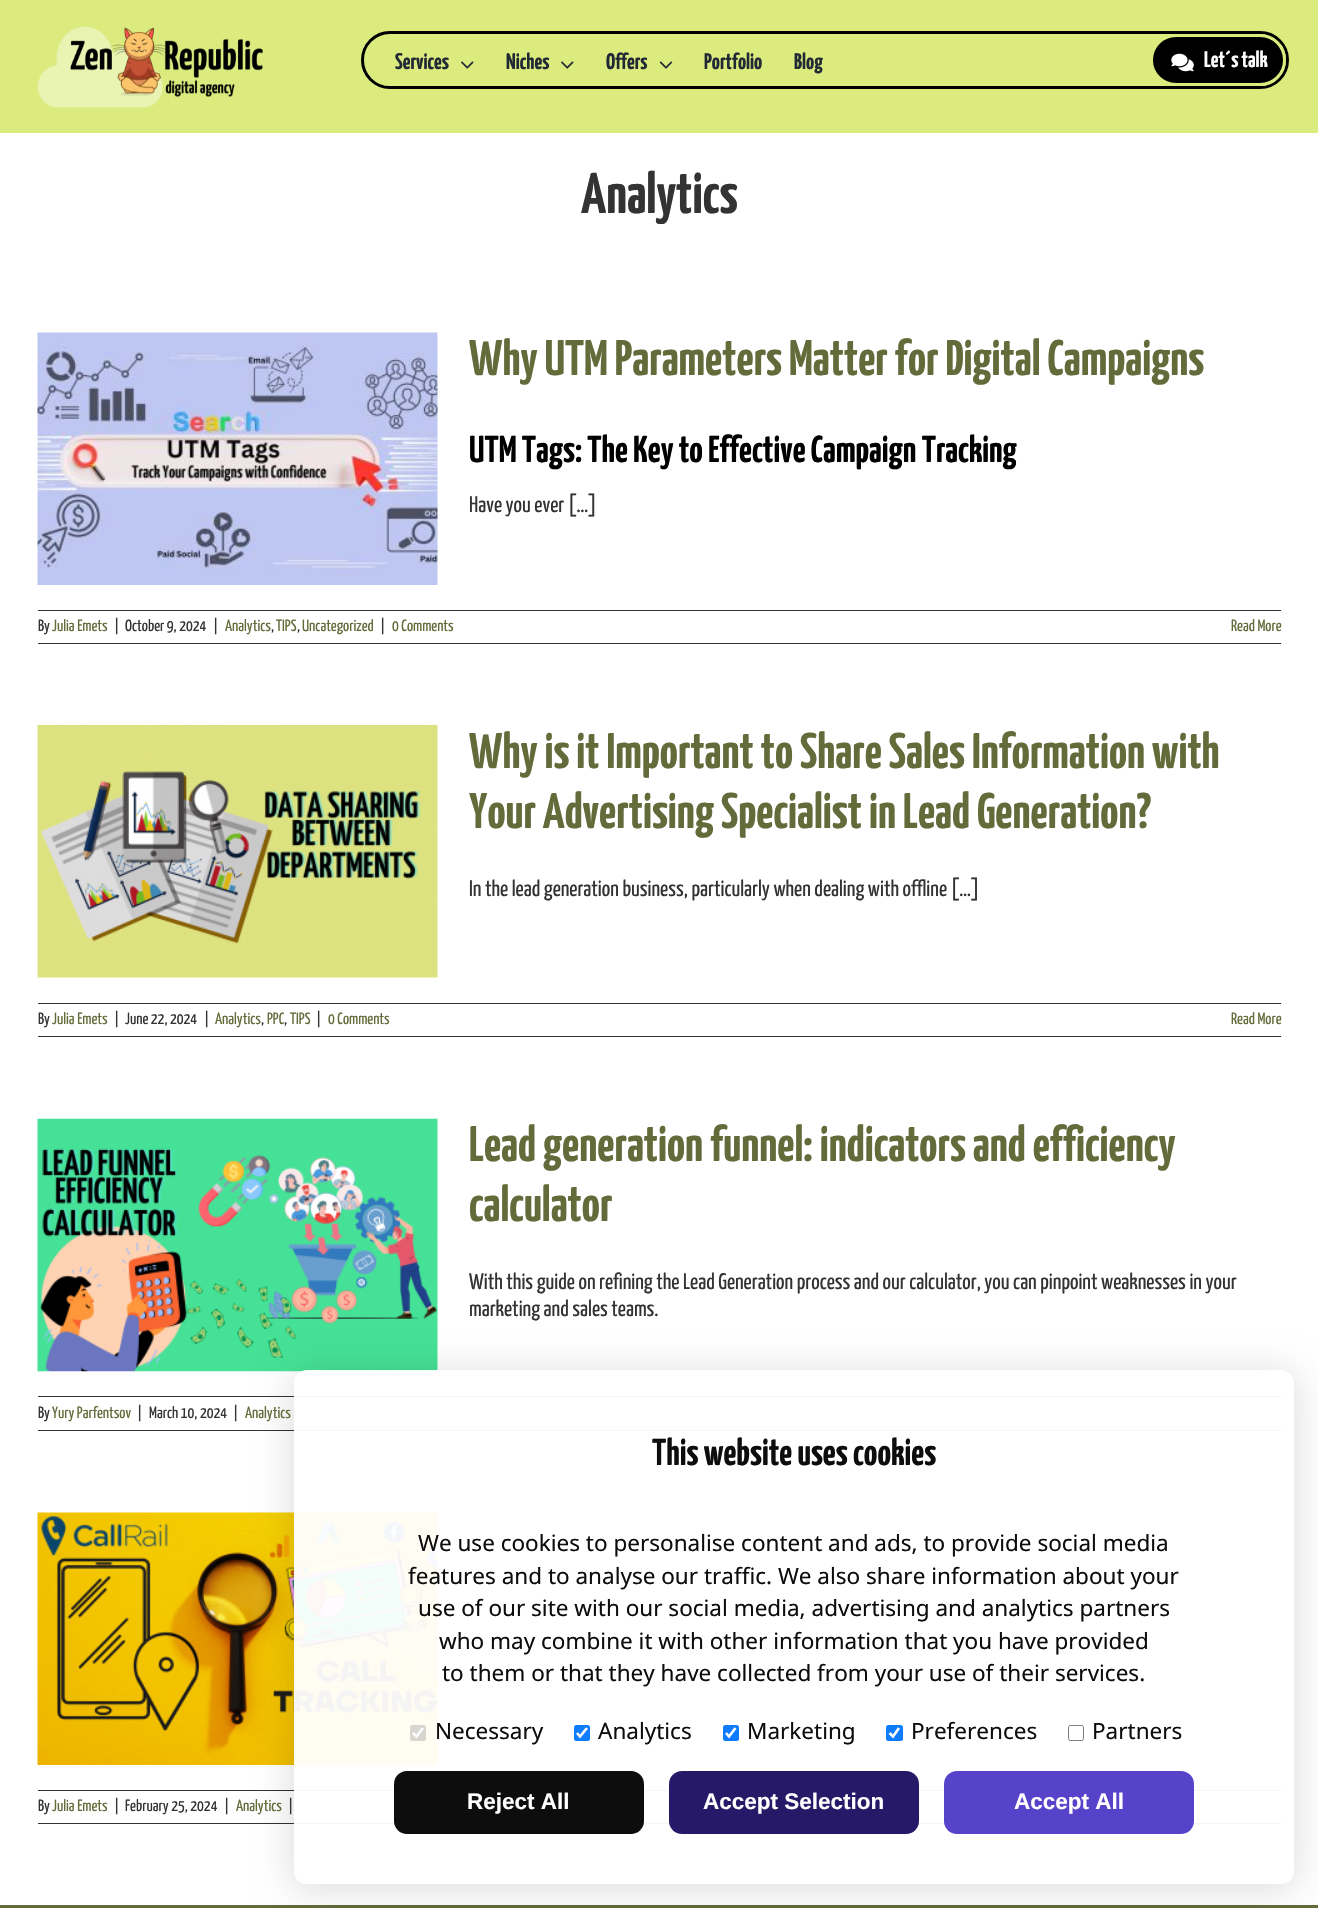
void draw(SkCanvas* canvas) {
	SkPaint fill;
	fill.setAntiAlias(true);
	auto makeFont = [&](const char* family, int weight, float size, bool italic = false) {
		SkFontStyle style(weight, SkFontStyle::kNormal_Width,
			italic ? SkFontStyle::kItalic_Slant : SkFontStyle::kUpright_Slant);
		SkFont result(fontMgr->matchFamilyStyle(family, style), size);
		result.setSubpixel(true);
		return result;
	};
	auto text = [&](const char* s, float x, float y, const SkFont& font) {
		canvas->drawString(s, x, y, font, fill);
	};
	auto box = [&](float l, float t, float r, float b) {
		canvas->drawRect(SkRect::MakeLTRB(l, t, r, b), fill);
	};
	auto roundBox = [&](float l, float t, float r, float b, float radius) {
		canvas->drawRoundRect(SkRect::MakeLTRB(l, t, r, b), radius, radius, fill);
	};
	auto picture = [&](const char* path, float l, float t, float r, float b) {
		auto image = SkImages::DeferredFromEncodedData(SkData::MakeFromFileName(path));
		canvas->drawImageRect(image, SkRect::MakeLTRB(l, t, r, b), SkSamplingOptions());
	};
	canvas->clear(0xFFFFFFFF);
	fill.setColor(0xFFDBEB7E);
	box(0, 0, 1318, 133);
	picture("image0.png", 37, 26, 263, 108);
	fill.setStyle(SkPaint::kStroke_Style);
	fill.setStrokeWidth(3);
	fill.setColor(0xFF000000);
	canvas->drawRoundRect(SkRect::MakeLTRB(362.5f, 32.5f, 1287.5f, 87.5f), 27.5f, 27.5f, fill);
	picture("image1.png", 461, 61, 474, 69);
	picture("image1.png", 561, 61, 574, 69);
	picture("image2.png", 659, 61, 673, 69);
	fill.setStyle(SkPaint::kFill_Style);
	canvas->drawRoundRect(SkRect::MakeLTRB(1151.5f, 35.5f, 1284.5f, 84.5f), 24.5f, 24.5f, fill);
	fill.setStyle(SkPaint::kStroke_Style);
	fill.setColor(0xFFDBEB7E);
	canvas->drawRoundRect(SkRect::MakeLTRB(1151.5f, 35.5f, 1284.5f, 84.5f), 24.5f, 24.5f, fill);
	picture("image3.png", 1171, 53, 1194, 72);
	picture("image4.png", 37, 332, 438, 585);
	fill.setStyle(SkPaint::kFill_Style);
	fill.setColor(0xFF333333);
	box(38, 610, 1281, 611);
	box(38, 643, 1281, 644);
	picture("image5.png", 37, 725, 438, 978);
	box(38, 1003, 1281, 1004);
	box(38, 1036, 1281, 1037);
	picture("image6.png", 37, 1118, 438, 1372);
	box(38, 1396, 1281, 1397);
	box(38, 1430, 1281, 1431);
	picture("image7.png", 37, 1512, 438, 1765);
	box(38, 1790, 1281, 1791);
	box(38, 1823, 1281, 1824);
	fill.setColor(0xFF646B3A);
	box(0, 1905, 1318, 1908);
	canvas->save();
	canvas->clipPath(SkPathBuilder(SkPathFillType::kEvenOdd).moveTo(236, 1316).lineTo(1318, 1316).lineTo(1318, 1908).lineTo(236, 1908).close().moveTo(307, 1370).lineTo(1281, 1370).cubicTo(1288, 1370, 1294, 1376, 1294, 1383).lineTo(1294, 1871).cubicTo(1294, 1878, 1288, 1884, 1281, 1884).lineTo(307, 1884).cubicTo(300, 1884, 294, 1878, 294, 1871).lineTo(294, 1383).cubicTo(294, 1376, 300, 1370, 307, 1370).close().detach(), true);
	fill.setColor(0x26000000);
	fill.setMaskFilter(SkMaskFilter::MakeBlur(kNormal_SkBlurStyle, 19));
	canvas->drawRoundRect(SkRect::MakeLTRB(294, 1374, 1294, 1888), 13, 13, fill);
	fill.setMaskFilter(nullptr);
	canvas->restore();
	fill.setColor(0xF2FFFFFF);
	roundBox(294, 1370, 1294, 1884, 13);
	fill.setColor(0xFFD7D6CF);
	roundBox(410, 1725, 426, 1741, 2.5f);
	fill.setStyle(SkPaint::kStroke_Style);
	fill.setStrokeWidth(2.6f);
	fill.setColor(0xFFFDFDFD);
	canvas->drawPath(SkPathBuilder().moveTo(413, 1733).lineTo(416.5f, 1736.5f).lineTo(423, 1728).detach(), fill);
	fill.setStyle(SkPaint::kFill_Style);
	fill.setColor(0xFF0D7CFF);
	roundBox(574, 1725, 590, 1741, 2.5f);
	fill.setStyle(SkPaint::kStroke_Style);
	fill.setColor(0xFFFFFFFF);
	canvas->drawPath(SkPathBuilder().moveTo(577, 1733).lineTo(580, 1736.5f).lineTo(587, 1728).detach(), fill);
	fill.setStyle(SkPaint::kFill_Style);
	fill.setColor(0xFF0D7CFF);
	roundBox(723, 1725, 739, 1741, 2.5f);
	fill.setStyle(SkPaint::kStroke_Style);
	fill.setColor(0xFFFFFFFF);
	canvas->drawPath(SkPathBuilder().moveTo(726, 1733).lineTo(729, 1736.5f).lineTo(735.5f, 1728).detach(), fill);
	fill.setStyle(SkPaint::kFill_Style);
	fill.setColor(0xFF0D7CFF);
	roundBox(886, 1725, 903, 1741, 2.5f);
	fill.setStyle(SkPaint::kStroke_Style);
	fill.setColor(0xFFFFFFFF);
	canvas->drawPath(SkPathBuilder().moveTo(889.5f, 1733).lineTo(893, 1736.5f).lineTo(899, 1728).detach(), fill);
	fill.setStrokeWidth(1);
	fill.setColor(0xFF7D7D7D);
	canvas->drawRoundRect(SkRect::MakeLTRB(1068.5f, 1725.5f, 1083.5f, 1740.5f), 2, 2, fill);
	fill.setStyle(SkPaint::kFill_Style);
	fill.setColor(0xF2000000);
	roundBox(394, 1771, 644, 1834, 13);
	fill.setColor(0xF21A0D60);
	roundBox(669, 1771, 919, 1834, 13);
	fill.setColor(0xF24E38C7);
	roundBox(944, 1771, 1194, 1834, 13);
	auto font1 = makeFont("Yanone Kaffeesatz", 700, 22.5f);
	fill.setColor(0xFF212934);
	text("Services", 395, 69, font1);
	text("Niches", 506, 69, font1);
	text("Offers", 606, 69, font1);
	text("Portfolio", 704, 69, font1);
	text("Blog", 794, 69, font1);
	fill.setColor(0xFFFFFFFF);
	text("Let´s talk", 1204, 67, font1);
	auto font2 = makeFont("Yanone Kaffeesatz", 700, 57.5f);
	fill.setColor(0xFF333333);
	text("Analytics", 581, 213, font2);
	auto font3 = makeFont("Yanone Kaffeesatz", 700, 50);
	fill.setColor(0xFF646B3A);
	text("Why UTM Parameters Matter for Digital Campaigns", 469, 375, font3);
	auto font4 = makeFont("Yanone Kaffeesatz", 700, 37.5f);
	fill.setColor(0xFF000000);
	text("UTM Tags: The Key to Effective Campaign Tracking", 469, 462, font4);
	auto font5 = makeFont("Yanone Kaffeesatz", 400, 22.5f);
	fill.setColor(0xFF333333);
	text("Have you ever […]", 469, 512, font5);
	auto font6 = makeFont("Yanone Kaffeesatz", 400, 16.25f);
	text("By", 38, 631, font6);
	fill.setColor(0xFF646B3A);
	text("Julia Emets", 52, 631, font6);
	fill.setColor(0xFF333333);
	text("|", 114, 631, font6);
	text("October 9, 2024", 125, 631, font6);
	text("|", 213, 631, font6);
	fill.setColor(0xFF646B3A);
	text("Analytics", 225, 631, font6);
	fill.setColor(0xFF333333);
	text(",", 271, 631, font6);
	fill.setColor(0xFF646B3A);
	text("TIPS", 276, 631, font6);
	fill.setColor(0xFF333333);
	text(",", 297, 631, font6);
	fill.setColor(0xFF646B3A);
	text("Uncategorized", 302, 631, font6);
	fill.setColor(0xFF333333);
	text("|", 380, 631, font6);
	fill.setColor(0xFF646B3A);
	text("0 Comments", 392, 631, font6);
	text("Read More", 1231, 631, font6);
	text("Why is it Important to Share Sales Information with", 469, 768, font3);
	text("Your Advertising Specialist in Lead Generation?", 469, 828, font3);
	fill.setColor(0xFF333333);
	text("In the lead generation business, particularly when dealing with offline […]", 469, 896, font5);
	text("By", 38, 1024, font6);
	fill.setColor(0xFF646B3A);
	text("Julia Emets", 52, 1024, font6);
	fill.setColor(0xFF333333);
	text("|", 114, 1024, font6);
	text("June 22, 2024", 125, 1024, font6);
	text("|", 204, 1024, font6);
	fill.setColor(0xFF646B3A);
	text("Analytics", 215, 1024, font6);
	fill.setColor(0xFF333333);
	text(",", 261, 1024, font6);
	fill.setColor(0xFF646B3A);
	text("PPC", 267, 1024, font6);
	fill.setColor(0xFF333333);
	text(",", 284, 1024, font6);
	fill.setColor(0xFF646B3A);
	text("TIPS", 290, 1024, font6);
	fill.setColor(0xFF333333);
	text("|", 316, 1024, font6);
	fill.setColor(0xFF646B3A);
	text("0 Comments", 328, 1024, font6);
	text("Read More", 1231, 1024, font6);
	text("Lead generation funnel: indicators and efficiency", 469, 1161, font3);
	text("calculator", 469, 1221, font3);
	fill.setColor(0xFF333333);
	text("With this guide on refining the Lead Generation process and our calculator, you can pinpoint weaknesses in your", 469, 1289, font5);
	text("marketing and sales teams.", 469, 1316, font5);
	text("By", 38, 1418, font6);
	fill.setColor(0xFF646B3A);
	text("Yury Parfentsov", 52, 1418, font6);
	fill.setColor(0xFF333333);
	text("|", 137, 1418, font6);
	text("March 10, 2024", 149, 1418, font6);
	text("|", 233, 1418, font6);
	fill.setColor(0xFF646B3A);
	text("Analytics", 245, 1418, font6);
	fill.setColor(0xFF333333);
	text("By", 38, 1811, font6);
	fill.setColor(0xFF646B3A);
	text("Julia Emets", 52, 1811, font6);
	fill.setColor(0xFF333333);
	text("|", 114, 1811, font6);
	text("February 25, 2024", 125, 1811, font6);
	text("|", 224, 1811, font6);
	fill.setColor(0xFF646B3A);
	text("Analytics", 236, 1811, font6);
	fill.setColor(0xFF333333);
	text("|", 288, 1811, font6);
	fill.setColor(0xFF0D0D0D);
	text("This website uses cookies", 652, 1465, font4);
	auto font7 = makeFont("Noto Sans", 400, 22.5f);
	text("We use cookies to personalise content and ads, to provide social media", 418, 1551, font7);
	text("features and to analyse our traffic. We also share information about your", 408, 1584, font7);
	text("use of our site with our social media, advertising and analytics partners", 418, 1616, font7);
	text("who may combine it with other information that you have provided", 439, 1649, font7);
	text("to them or that they have collected from your use of their services.", 442, 1681, font7);
	text("Necessary", 435, 1739, font7);
	text("Analytics", 598, 1739, font7);
	text("Marketing", 747, 1739, font7);
	text("Preferences", 911, 1739, font7);
	text("Partners", 1092, 1739, font7);
	auto font8 = makeFont("Liberation Sans", 700, 22.5f);
	fill.setColor(0xFFFFFFFF);
	text("Reject All", 467, 1809, font8);
	text("Accept Selection", 703, 1809, font8);
	text("Accept All", 1014, 1809, font8);
}
